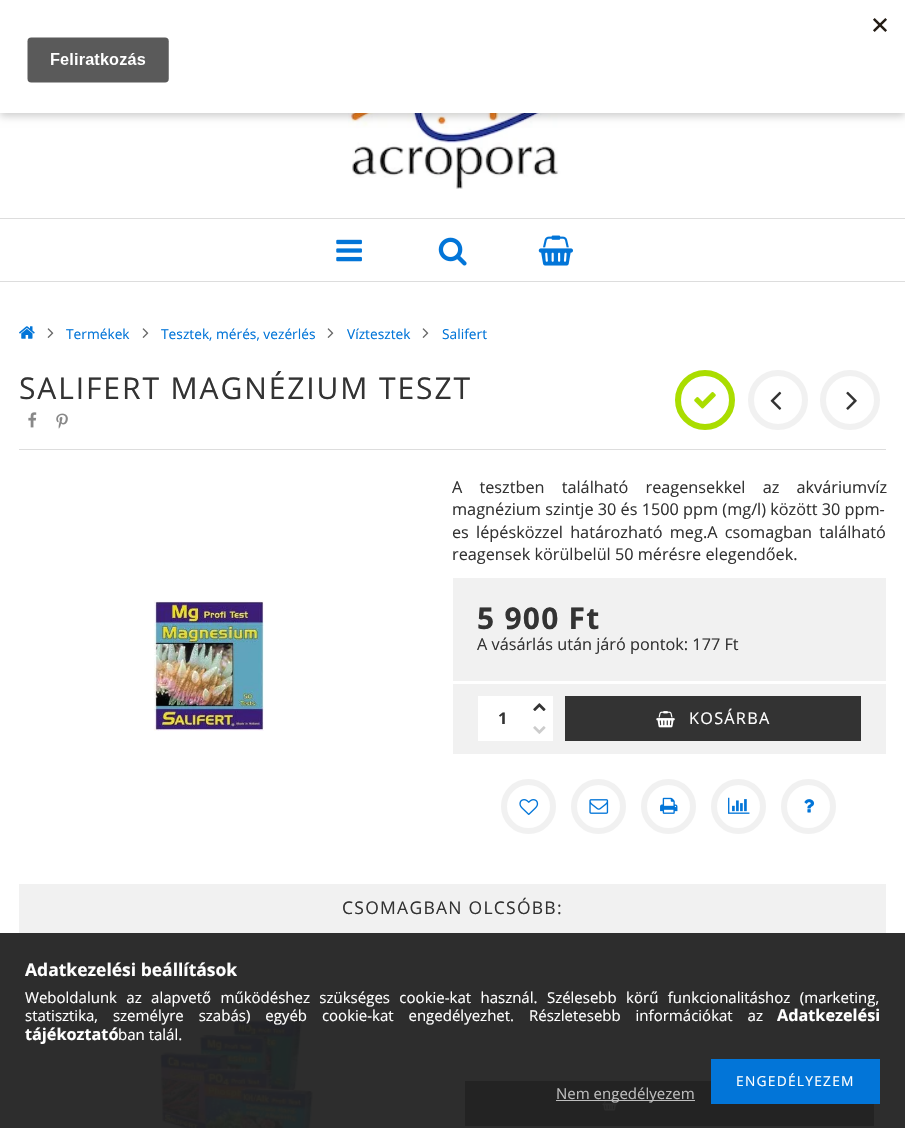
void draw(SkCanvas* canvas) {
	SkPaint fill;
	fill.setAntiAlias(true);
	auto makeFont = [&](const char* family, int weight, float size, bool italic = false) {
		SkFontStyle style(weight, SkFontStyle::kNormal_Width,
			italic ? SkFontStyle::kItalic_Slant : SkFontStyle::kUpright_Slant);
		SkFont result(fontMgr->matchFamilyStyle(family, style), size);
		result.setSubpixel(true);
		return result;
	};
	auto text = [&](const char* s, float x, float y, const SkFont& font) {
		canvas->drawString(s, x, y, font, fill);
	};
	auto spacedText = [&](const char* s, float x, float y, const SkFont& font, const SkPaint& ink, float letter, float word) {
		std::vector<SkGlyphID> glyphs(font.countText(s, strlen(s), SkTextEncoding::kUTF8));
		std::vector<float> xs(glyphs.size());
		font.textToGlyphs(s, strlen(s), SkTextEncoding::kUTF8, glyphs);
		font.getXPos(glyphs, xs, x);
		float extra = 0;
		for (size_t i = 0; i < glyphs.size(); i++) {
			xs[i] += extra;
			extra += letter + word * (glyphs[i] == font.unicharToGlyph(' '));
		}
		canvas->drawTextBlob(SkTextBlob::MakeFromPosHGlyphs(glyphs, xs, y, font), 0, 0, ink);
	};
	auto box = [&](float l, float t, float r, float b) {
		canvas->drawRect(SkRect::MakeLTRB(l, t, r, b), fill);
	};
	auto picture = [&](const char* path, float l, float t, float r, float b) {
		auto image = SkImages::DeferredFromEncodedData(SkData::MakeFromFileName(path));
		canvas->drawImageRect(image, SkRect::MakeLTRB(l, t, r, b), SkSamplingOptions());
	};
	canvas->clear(0xFFFFFFFF);
	fill.setColor(0xFF2D2D2D);
	box(0, 933, 905, 1128);
	picture("image1.png", 348, 113, 561, 189);
	fill.setColor(0x33000000);
	fill.setMaskFilter(SkMaskFilter::MakeBlur(kNormal_SkBlurStyle, 4));
	canvas->drawRect(SkRect::MakeLTRB(0, 4, 905, 116), fill);
	fill.setMaskFilter(nullptr);
	fill.setColor(0xFFFFFFFF);
	box(0, 0, 905, 113);
	picture("image0.png", 27, 18, 887, 83);
	fill.setColor(0xFFDDDDDD);
	box(0, 218, 905, 219);
	box(0, 281, 905, 282);
	picture("image2.png", 336, 239, 362, 262);
	picture("image3.png", 438, 237, 467, 266);
	picture("image4.png", 538, 235, 573, 266);
	picture("image5.png", 19, 326, 35, 339);
	picture("image6.png", 47, 328, 54, 338);
	picture("image6.png", 142, 328, 149, 338);
	picture("image6.png", 327, 328, 334, 338);
	picture("image6.png", 422, 328, 429, 338);
	box(19, 449, 886, 450);
	picture("image7.png", 28, 412, 37, 428);
	picture("image8.png", 56, 413, 68, 429);
	fill.setStyle(SkPaint::kStroke_Style);
	fill.setStrokeWidth(6);
	fill.setColor(0xFFAADD00);
	canvas->drawCircle(705, 400, 27, fill);
	picture("image9.png", 694, 392, 716, 409);
	fill.setColor(0xFFF1F1F1);
	canvas->drawCircle(778, 400, 27, fill);
	picture("image10.png", 770, 391, 782, 410);
	canvas->drawCircle(850, 400, 27, fill);
	picture("image11.png", 846, 391, 857, 410);
	picture("image12.png", 153, 600, 264, 731);
	fill.setStyle(SkPaint::kFill_Style);
	box(453, 578, 886, 681);
	box(453, 684, 886, 754);
	fill.setColor(0xFFFFFFFF);
	box(478, 696, 528, 741);
	box(528, 696, 553, 741);
	picture("image13.png", 533, 703, 546, 711);
	picture("image14.png", 533, 726, 546, 734);
	fill.setColor(0xFF333333);
	box(565, 696, 861, 741);
	picture("image15.png", 656, 711, 675, 728);
	fill.setStyle(SkPaint::kStroke_Style);
	fill.setColor(0xFFF1F1F1);
	canvas->drawCircle(528.5f, 806.5f, 24.5f, fill);
	picture("image16.png", 519, 799, 539, 815);
	canvas->drawCircle(598.5f, 806.5f, 24.5f, fill);
	picture("image17.png", 589, 799, 609, 814);
	canvas->drawCircle(668.5f, 806.5f, 24.5f, fill);
	picture("image18.png", 660, 797, 678, 814);
	canvas->drawCircle(738.5f, 806.5f, 24.5f, fill);
	picture("image19.png", 728, 797, 750, 814);
	canvas->drawCircle(808.5f, 806.5f, 24.5f, fill);
	picture("image20.png", 804, 799, 815, 813);
	fill.setStyle(SkPaint::kFill_Style);
	box(19, 884, 886, 933);
	picture("image21.png", 158, 1014, 315, 1128);
	fill.setColor(0xFF232323);
	box(465, 1081, 874, 1126);
	picture("image22.png", 602, 1098, 617, 1111);
	fill.setColor(0xFF0275D8);
	box(711, 1059, 880, 1104);
	fill.setColor(0xB3FFFFFF);
	box(556, 1100, 695, 1101);
	auto font1 = makeFont("Open Sans", 400, 13.75f);
	fill.setColor(0xFF0275D8);
	text("Termékek", 66, 339, font1);
	text("Tesztek, mérés, vezérlés", 161, 339, font1);
	text("Víztesztek", 347, 339, font1);
	text("Salifert", 442, 339, font1);
	auto font2 = makeFont("Open Sans", 400, 30);
	fill.setColor(0xFF333333);
	spacedText("SALIFERT MAGNÉZIUM TESZT", 19, 399, font2, fill, 1.9f, 0);
	auto font3 = makeFont("Open Sans", 400, 16.25f);
	spacedText("A tesztben található reagensekkel az akváriumvíz", 452, 493, font3, fill, 0, 13);
	text("magnézium szintje 30 és 1500 ppm (mg/l) között 30 ppm-", 452, 515, font3);
	spacedText("es lépésközzel határozható meg.A csomagban található", 452, 538, font3, fill, 0, 3);
	text("reagensek körülbelül 50 mérésre elegendőek.", 452, 560, font3);
	auto font4 = makeFont("Open Sans", 700, 30);
	spacedText("5 900 Ft", 477, 629, font4, fill, 1.25f, 0);
	text("A vásárlás után járó pontok: 177 Ft", 477, 650, font3);
	auto font5 = makeFont("Open Sans", 700, 16.25f);
	text("1", 498, 724, font5);
	fill.setColor(0xFFFFFFFF);
	spacedText("KOSÁRBA", 689, 724, font3, fill, 1.25f, 0);
	auto font6 = makeFont("Open Sans", 400, 17.5f);
	fill.setColor(0xFF333333);
	spacedText("CSOMAGBAN OLCSÓBB:", 342, 914, font6, fill, 1.25f, 0);
	auto font7 = makeFont("Open Sans", 700, 17.5f);
	fill.setColor(0xFFFFFFFF);
	text("Adatkezelési beállítások", 25, 976, font7);
	auto font8 = makeFont("Open Sans", 400, 15);
	spacedText("Weboldalunk az alapvető működéshez szükséges cookie-kat használ. Szélesebb körű funkcionalitáshoz (marketing,", 25, 1003, font8, fill, 0, 5.5f);
	spacedText("statisztika, személyre szabás) egyéb cookie-kat engedélyezhet. Részletesebb információkat az", 25, 1021, font8, fill, 0, 11);
	text("Adatkezelési", 777, 1021, font5);
	text("tájékoztató", 25, 1040, font5);
	text("ban talál.", 118, 1040, font8);
	spacedText("ENGEDÉLYEZEM", 736, 1086, font1, fill, 1.25f, 0);
	fill.setColor(0xFFBDBDBD);
	text("Nem engedélyezem", 556, 1099, font8);
}
